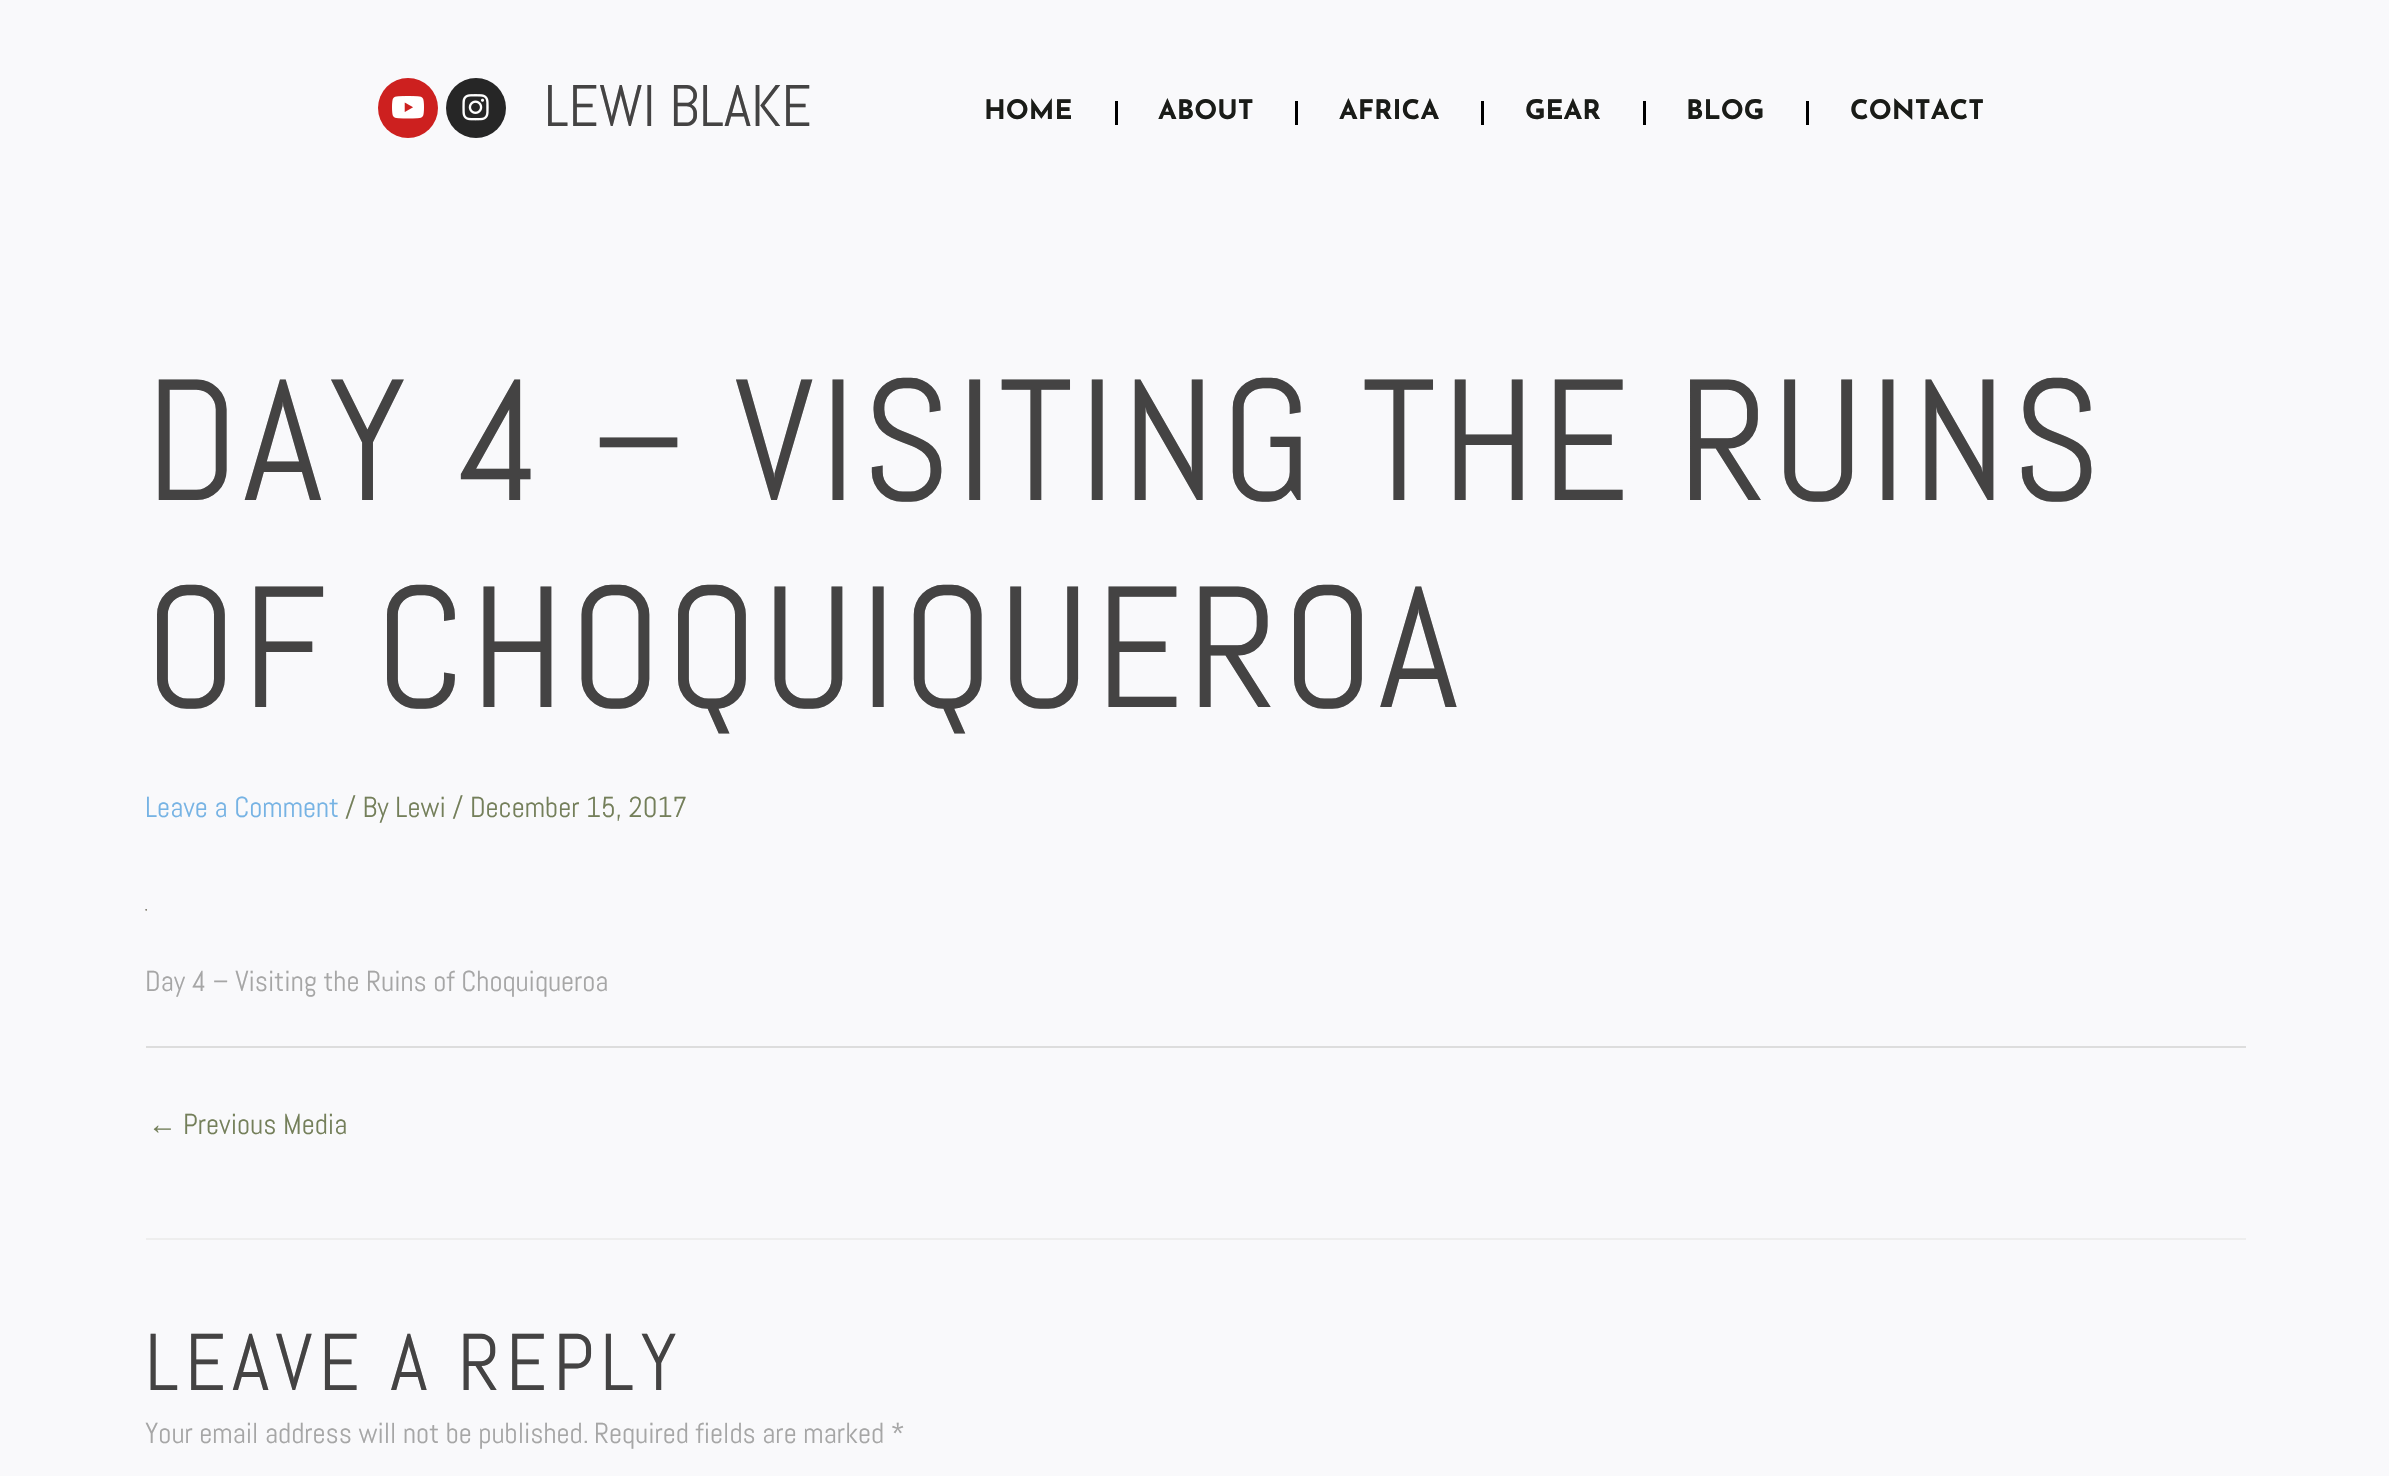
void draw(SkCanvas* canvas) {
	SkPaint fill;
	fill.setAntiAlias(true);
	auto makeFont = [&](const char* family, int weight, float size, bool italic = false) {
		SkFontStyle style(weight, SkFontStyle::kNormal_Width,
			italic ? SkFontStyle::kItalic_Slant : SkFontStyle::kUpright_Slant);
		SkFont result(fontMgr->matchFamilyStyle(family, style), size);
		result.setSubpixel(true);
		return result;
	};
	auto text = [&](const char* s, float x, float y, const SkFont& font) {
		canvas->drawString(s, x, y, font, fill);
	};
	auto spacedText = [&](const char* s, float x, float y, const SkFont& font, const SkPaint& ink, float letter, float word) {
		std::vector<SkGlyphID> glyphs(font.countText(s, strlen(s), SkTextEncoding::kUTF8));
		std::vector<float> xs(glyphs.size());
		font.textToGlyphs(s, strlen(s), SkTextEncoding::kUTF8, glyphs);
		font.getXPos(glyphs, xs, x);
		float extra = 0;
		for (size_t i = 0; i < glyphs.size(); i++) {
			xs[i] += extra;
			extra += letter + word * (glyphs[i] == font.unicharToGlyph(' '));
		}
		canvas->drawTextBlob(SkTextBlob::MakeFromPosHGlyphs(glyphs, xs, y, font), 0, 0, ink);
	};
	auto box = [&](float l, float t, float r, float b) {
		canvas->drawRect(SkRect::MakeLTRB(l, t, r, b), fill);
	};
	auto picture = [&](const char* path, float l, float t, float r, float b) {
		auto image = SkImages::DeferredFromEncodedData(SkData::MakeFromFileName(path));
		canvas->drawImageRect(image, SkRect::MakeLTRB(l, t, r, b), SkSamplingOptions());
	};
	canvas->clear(0xFFF9F9FB);
	fill.setColor(0xFFCD201F);
	canvas->drawCircle(408, 108, 30, fill);
	picture("image0.png", 392, 96, 424, 119);
	fill.setColor(0xFF262626);
	canvas->drawCircle(476, 108, 30, fill);
	picture("image1.png", 462, 94, 489, 121);
	fill.setColor(0xFF000000);
	box(1115, 101, 1118, 125);
	box(1295, 101, 1298, 125);
	box(1481, 101, 1484, 125);
	box(1643, 101, 1646, 125);
	box(1806, 101, 1809, 125);
	picture("image2.png", 145, 909, 147, 911);
	fill.setColor(0xFFDDDDDD);
	box(146, 1046, 2246, 1048);
	fill.setColor(0xFFEEEEEE);
	box(146, 1238, 2246, 1240);
	auto font1 = makeFont("Abel", 400, 58.5f);
	fill.setColor(0xFF444343);
	text("LEWI BLAKE", 544, 126, font1);
	auto font2 = makeFont("Josefin Sans", 700, 27);
	fill.setColor(0xFF1A1C18);
	text("HOME", 984, 119, font2);
	text("ABOUT", 1158, 119, font2);
	text("AFRICA", 1339, 119, font2);
	text("GEAR", 1525, 119, font2);
	text("BLOG", 1686, 119, font2);
	text("CONTACT", 1850, 119, font2);
	auto font3 = makeFont("Abel", 400, 172.1f);
	fill.setColor(0xFF444343);
	spacedText("DAY 4 – VISITING THE RUINS", 145, 500, font3, fill, 4.5f, 0);
	spacedText("OF CHOQUIQUEROA", 145, 707, font3, fill, 4.5f, 0);
	auto font4 = makeFont("Abel", 400, 28.75f);
	fill.setColor(0xFF76B3E4);
	text("Leave a Comment", 145, 817, font4);
	fill.setColor(0xFF747F5A);
	text("/ By Lewi / December 15, 2017", 345, 817, font4);
	fill.setColor(0xFFA6A6A6);
	text("Day 4 – Visiting the Ruins of Choquiqueroa", 145, 991, font4);
	auto font5 = makeFont("Liberation Sans", 400, 28.75f);
	fill.setColor(0xFF747F5A);
	text("←", 148, 1134, font5);
	text("Previous Media", 183, 1134, font4);
	auto font6 = makeFont("Abel", 400, 80.25f);
	fill.setColor(0xFF444343);
	spacedText("LEAVE A REPLY", 145, 1390, font6, fill, 6, 0);
	fill.setColor(0xFFA6A6A6);
	text("Your email address will not be published.", 145, 1443, font4);
	text("Required fields are marked *", 594, 1443, font4);
}
